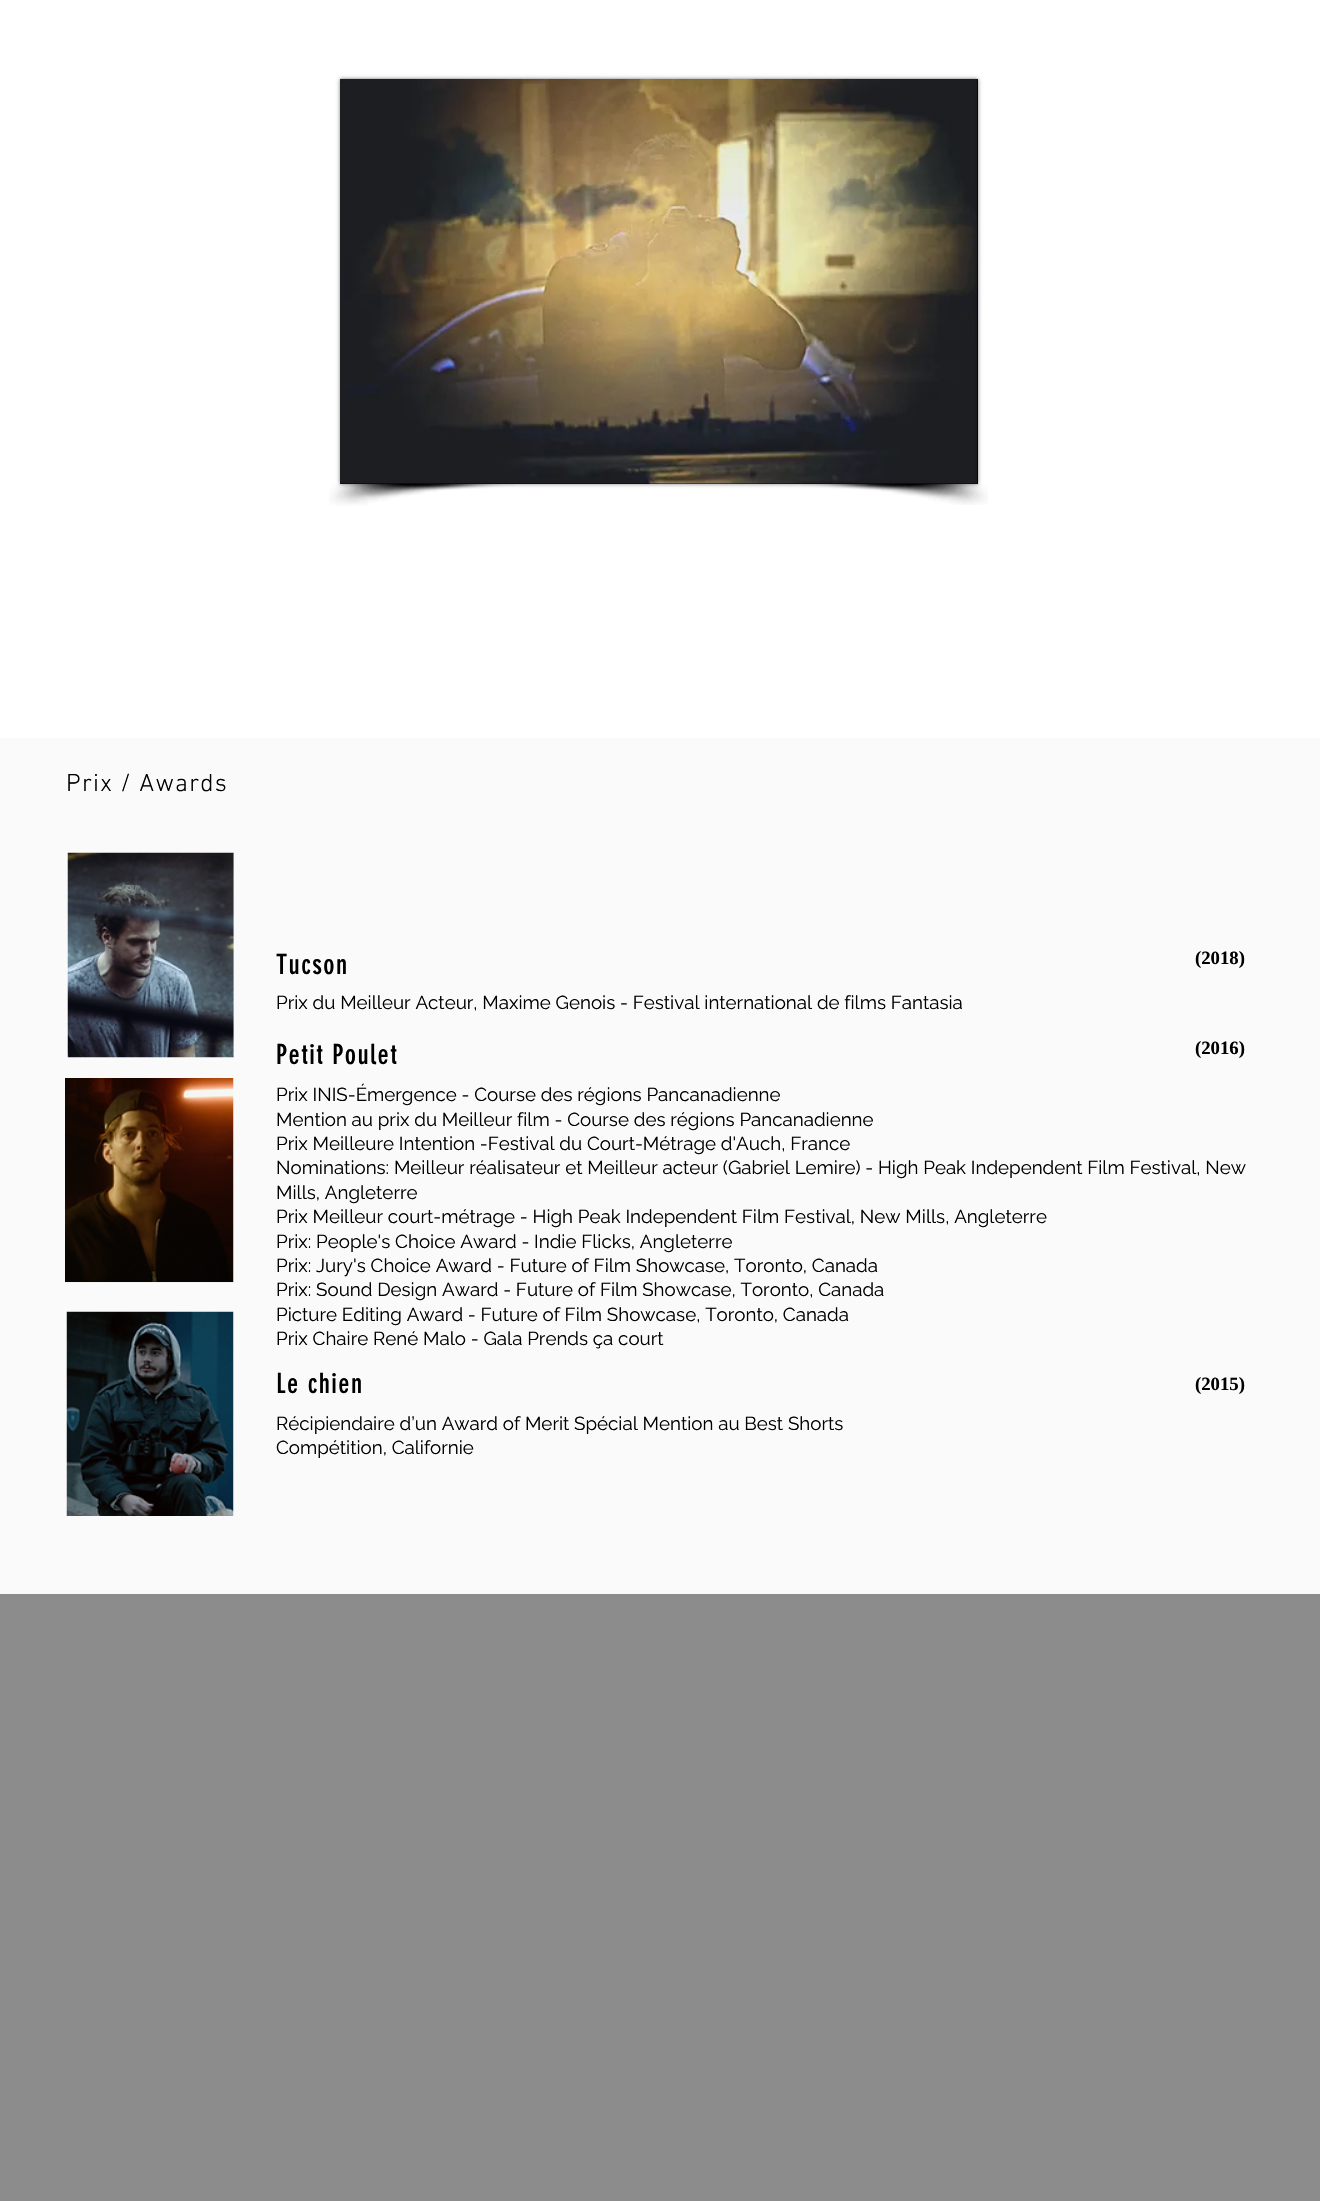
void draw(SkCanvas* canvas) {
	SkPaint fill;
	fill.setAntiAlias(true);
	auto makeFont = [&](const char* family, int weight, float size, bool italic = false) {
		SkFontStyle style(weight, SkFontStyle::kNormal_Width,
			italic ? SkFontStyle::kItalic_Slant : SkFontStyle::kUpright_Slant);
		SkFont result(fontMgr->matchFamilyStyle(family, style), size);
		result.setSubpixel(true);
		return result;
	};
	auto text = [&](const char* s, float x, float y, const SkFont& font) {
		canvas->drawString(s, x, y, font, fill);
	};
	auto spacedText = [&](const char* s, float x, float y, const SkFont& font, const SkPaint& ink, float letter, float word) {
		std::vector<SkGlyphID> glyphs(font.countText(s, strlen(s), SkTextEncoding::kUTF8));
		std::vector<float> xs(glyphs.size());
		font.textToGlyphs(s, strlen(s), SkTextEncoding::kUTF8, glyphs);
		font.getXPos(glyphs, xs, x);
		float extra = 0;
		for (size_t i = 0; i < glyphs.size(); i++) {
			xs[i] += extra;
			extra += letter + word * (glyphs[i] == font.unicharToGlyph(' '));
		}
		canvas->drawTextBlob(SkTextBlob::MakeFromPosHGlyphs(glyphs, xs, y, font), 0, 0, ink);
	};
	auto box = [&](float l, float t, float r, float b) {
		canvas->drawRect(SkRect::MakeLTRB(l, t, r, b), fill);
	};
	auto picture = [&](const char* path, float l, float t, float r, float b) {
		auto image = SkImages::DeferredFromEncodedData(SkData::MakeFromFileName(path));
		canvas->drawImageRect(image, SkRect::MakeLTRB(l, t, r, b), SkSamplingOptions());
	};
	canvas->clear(0xFFFFFFFF);
	fill.setColor(0x80000000);
	fill.setMaskFilter(SkMaskFilter::MakeBlur(kNormal_SkBlurStyle, 2));
	canvas->drawRect(SkRect::MakeLTRB(340, 79, 978, 484), fill);
	fill.setMaskFilter(nullptr);
	fill.setColor(0xFF000000);
	box(340, 79, 978, 484);
	picture("image0.png", 340, 78, 978, 484);
	picture("image1.png", 329, 483, 515, 506);
	picture("image2.png", 802, 483, 988, 505);
	fill.setColor(0xFFFAFAFA);
	box(0, 738, 1320, 1594);
	picture("image3.png", 67, 852, 234, 1058);
	picture("image4.png", 65, 1078, 234, 1283);
	picture("image5.png", 66, 1311, 234, 1516);
	fill.setColor(0xFF8C8C8C);
	box(0, 1594, 1320, 2201);
	auto font1 = makeFont("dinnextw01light", 300, 25);
	fill.setColor(0xFF000000);
	spacedText("Prix / Awards", 66, 791, font1, fill, 1.25f, 0);
	auto font2 = makeFont("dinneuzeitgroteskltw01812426", 400, 27.5f);
	spacedText("Tucson", 276, 974, font2, fill, 1.4f, 0);
	auto font3 = makeFont("Liberation Serif", 700, 18.75f);
	text("(2018)", 1195, 964, font3);
	auto font4 = makeFont("Raleway", 400, 18.75f);
	text("Prix du Meilleur Acteur, Maxime Genois - Festival international de films Fantasia", 276, 1009, font4);
	spacedText("Petit Poulet", 276, 1064, font2, fill, 1.4f, 0);
	text("(2016)", 1195, 1054, font3);
	text("Prix INIS-Émergence - Course des régions Pancanadienne", 276, 1101, font4);
	text("Mention au prix du Meilleur film - Course des régions Pancanadienne", 276, 1126, font4);
	text("Prix Meilleure Intention -Festival du Court-Métrage d'Auch, France", 276, 1150, font4);
	text("Nominations: Meilleur réalisateur et Meilleur acteur (Gabriel Lemire) - High Peak Independent Film Festival, New", 276, 1174, font4);
	text("Mills, Angleterre", 276, 1199, font4);
	text("Prix Meilleur court-métrage - High Peak Independent Film Festival, New Mills, Angleterre", 276, 1223, font4);
	text("Prix: People's Choice Award - Indie Flicks, Angleterre", 276, 1248, font4);
	text("Prix: Jury's Choice Award - Future of Film Showcase, Toronto, Canada", 276, 1272, font4);
	text("Prix: Sound Design Award - Future of Film Showcase, Toronto, Canada", 276, 1296, font4);
	text("Picture Editing Award - Future of Film Showcase, Toronto, Canada", 276, 1321, font4);
	text("Prix Chaire René Malo - Gala Prends ça court", 276, 1345, font4);
	spacedText("Le chien", 276, 1393, font2, fill, 1.4f, 0);
	text("(2015)", 1195, 1390, font3);
	text("Récipiendaire d’un Award of Merit Spécial Mention au Best Shorts", 276, 1430, font4);
	text("Compétition, Californie", 276, 1454, font4);
}
